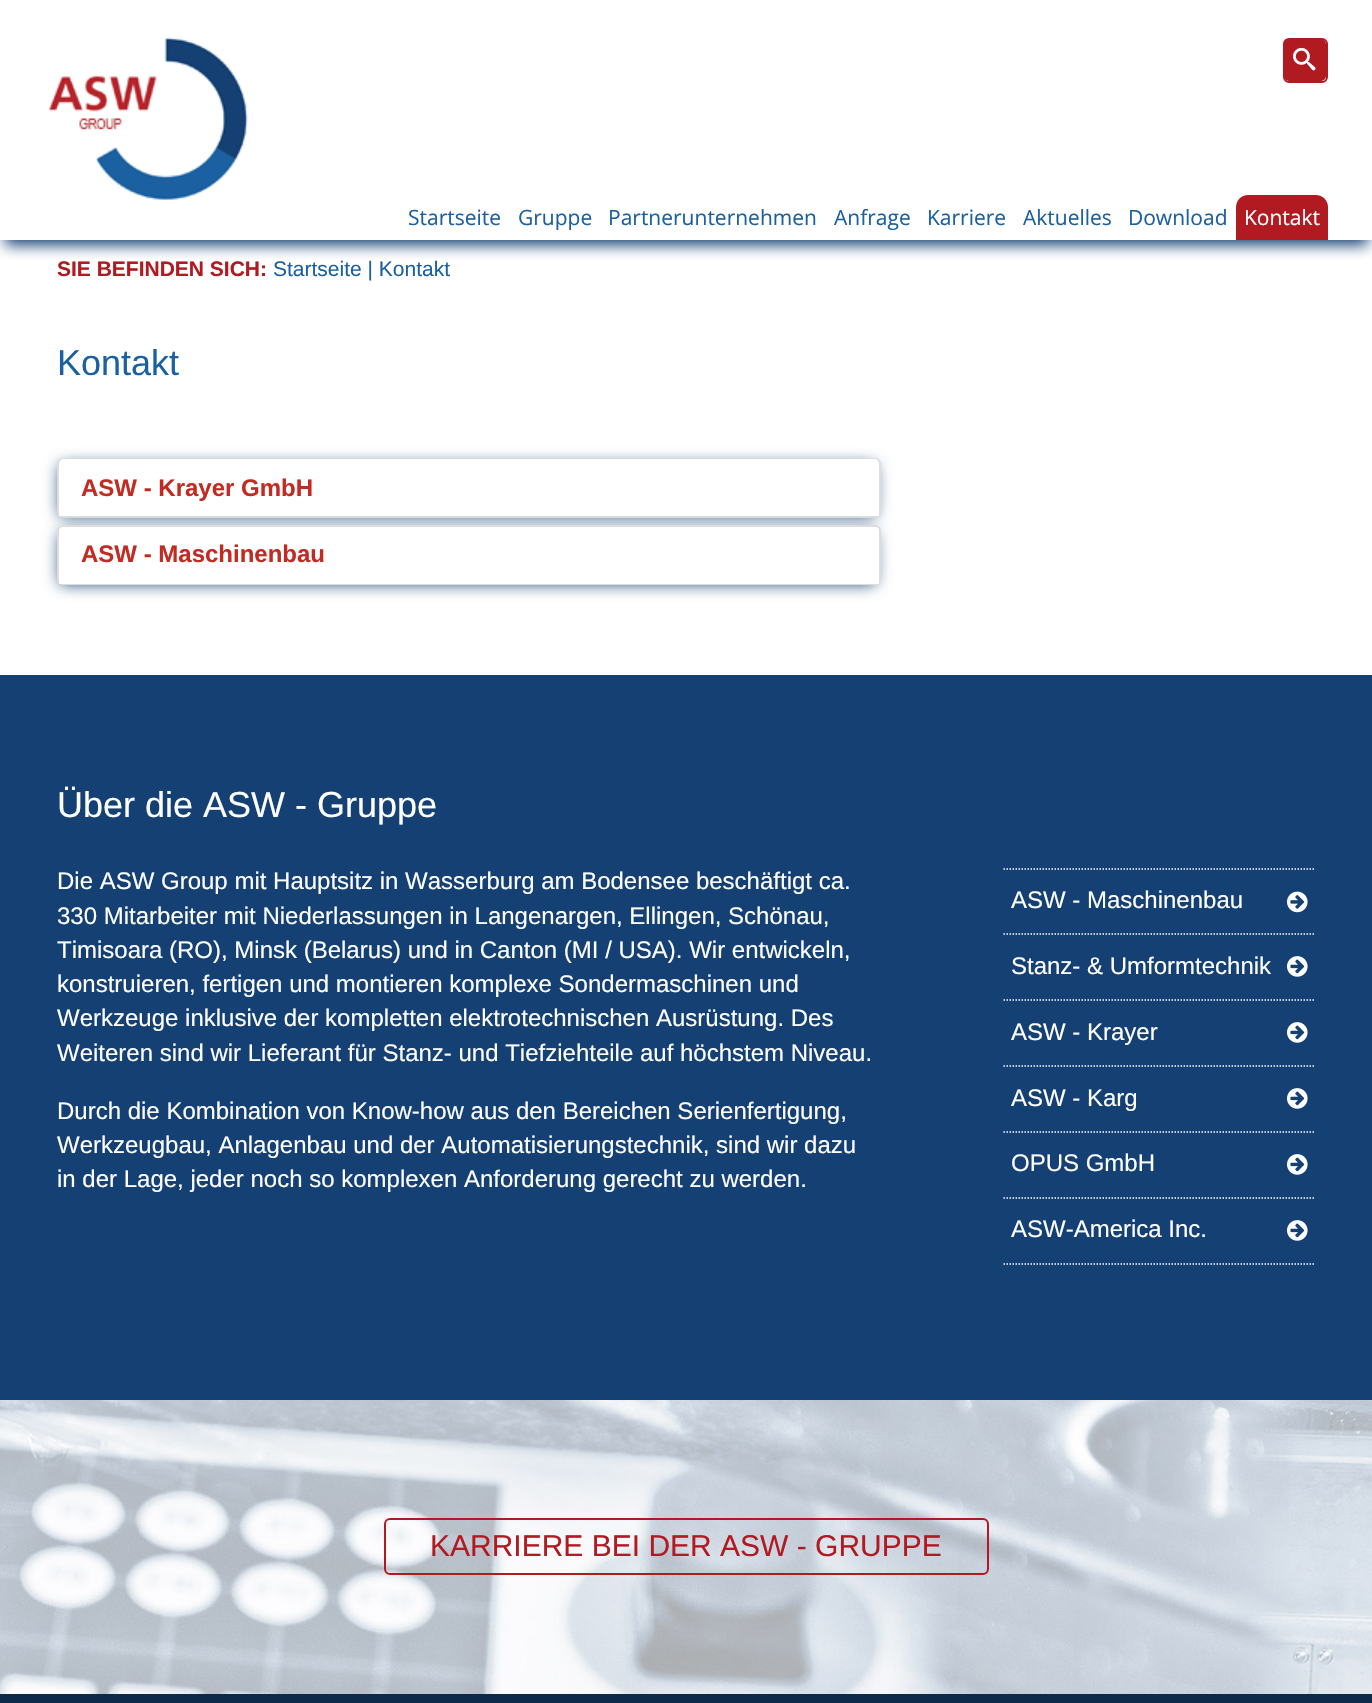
void draw(SkCanvas* canvas) {
	SkPaint fill;
	fill.setAntiAlias(true);
	auto makeFont = [&](const char* family, int weight, float size, bool italic = false) {
		SkFontStyle style(weight, SkFontStyle::kNormal_Width,
			italic ? SkFontStyle::kItalic_Slant : SkFontStyle::kUpright_Slant);
		SkFont result(fontMgr->matchFamilyStyle(family, style), size);
		result.setSubpixel(true);
		return result;
	};
	auto text = [&](const char* s, float x, float y, const SkFont& font) {
		canvas->drawString(s, x, y, font, fill);
	};
	auto box = [&](float l, float t, float r, float b) {
		canvas->drawRect(SkRect::MakeLTRB(l, t, r, b), fill);
	};
	auto roundBox = [&](float l, float t, float r, float b, float radius) {
		canvas->drawRoundRect(SkRect::MakeLTRB(l, t, r, b), radius, radius, fill);
	};
	auto picture = [&](const char* path, float l, float t, float r, float b) {
		auto image = SkImages::DeferredFromEncodedData(SkData::MakeFromFileName(path));
		canvas->drawImageRect(image, SkRect::MakeLTRB(l, t, r, b), SkSamplingOptions());
	};
	canvas->clear(0xFFFFFFFF);
	picture("image0.png", 0, 1400, 1372, 1694);
	canvas->save();
	canvas->clipRect(SkRect::MakeLTRB(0, 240, 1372, 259));
	fill.setColor(0xFF144073);
	fill.setMaskFilter(SkMaskFilter::MakeBlur(kNormal_SkBlurStyle, 7));
	canvas->drawRect(SkRect::MakeLTRB(5, 14, 1368, 245), fill);
	fill.setMaskFilter(nullptr);
	canvas->restore();
	picture("image1.png", 49, 37, 248, 201);
	fill.setStyle(SkPaint::kStroke_Style);
	fill.setStrokeWidth(2);
	fill.setColor(0xFFB21A21);
	canvas->drawRoundRect(SkRect::MakeLTRB(1284, 39, 1327, 82), 5, 5, fill);
	fill.setStyle(SkPaint::kFill_Style);
	roundBox(1284, 39, 1326, 81, 5);
	picture("image2.png", 1293, 47, 1316, 71);
	canvas->drawPath(SkPathBuilder().moveTo(1248, 195).lineTo(1316, 195).cubicTo(1322.5f, 195, 1328, 200.5f, 1328, 207).lineTo(1328, 240).lineTo(1236, 240).lineTo(1236, 207).cubicTo(1236, 200.5f, 1241.5f, 195, 1248, 195).close().detach(), fill);
	fill.setColor(0xFF144073);
	fill.setMaskFilter(SkMaskFilter::MakeBlur(kNormal_SkBlurStyle, 8));
	canvas->drawRoundRect(SkRect::MakeLTRB(60, 465, 875, 516), 1.5f, 1.5f, fill);
	fill.setMaskFilter(nullptr);
	fill.setStyle(SkPaint::kStroke_Style);
	fill.setColor(0xFFDDDDDD);
	canvas->drawRoundRect(SkRect::MakeLTRB(58, 459, 880, 517), 5, 5, fill);
	fill.setStyle(SkPaint::kFill_Style);
	fill.setColor(0xFFFFFFFF);
	canvas->drawPath(SkPathBuilder().moveTo(64, 459).lineTo(874, 459).cubicTo(877, 459, 879, 461, 879, 464).lineTo(879, 516).lineTo(59, 516).lineTo(59, 464).cubicTo(59, 461, 61, 459, 64, 459).close().detach(), fill);
	fill.setColor(0xFF144073);
	fill.setMaskFilter(SkMaskFilter::MakeBlur(kNormal_SkBlurStyle, 8));
	canvas->drawRoundRect(SkRect::MakeLTRB(60, 533, 875, 584), 1.5f, 1.5f, fill);
	fill.setMaskFilter(nullptr);
	fill.setColor(0xFFFFFFFF);
	canvas->drawRoundRect(SkRect::MakeLTRB(58, 526, 880, 584), 5, 5, fill);
	fill.setStyle(SkPaint::kStroke_Style);
	fill.setColor(0xFFDDDDDD);
	canvas->drawRoundRect(SkRect::MakeLTRB(58, 526, 880, 584), 5, 5, fill);
	fill.setStyle(SkPaint::kFill_Style);
	fill.setColor(0xFFFFFFFF);
	canvas->drawPath(SkPathBuilder().moveTo(64, 527).lineTo(874, 527).cubicTo(877, 527, 879, 529, 879, 532).lineTo(879, 584).lineTo(59, 584).lineTo(59, 532).cubicTo(59, 529, 61, 527, 64, 527).close().detach(), fill);
	fill.setColor(0xFF144073);
	box(0, 675, 1372, 1400);
	fill.setStyle(SkPaint::kStroke_Style);
	fill.setStrokeWidth(1.5f);
	fill.setColor(0xFFFFFFFF);
	fill.setPathEffect(SkDashPathEffect::Make({{1.5f, 1.5f}}, 0));
	canvas->drawPath(SkPathBuilder().moveTo(1003.5f, 869).lineTo(1315.5f, 869).detach(), fill);
	fill.setPathEffect(nullptr);
	picture("image3.png", 1287, 891, 1308, 913);
	fill.setPathEffect(SkDashPathEffect::Make({{1.5f, 1.5f}}, 0));
	canvas->drawPath(SkPathBuilder().moveTo(1003.5f, 934).lineTo(1315.5f, 934).detach(), fill);
	fill.setPathEffect(nullptr);
	picture("image4.png", 1287, 956, 1308, 977);
	fill.setPathEffect(SkDashPathEffect::Make({{1.5f, 1.5f}}, 0));
	canvas->drawPath(SkPathBuilder().moveTo(1003.5f, 1000).lineTo(1315.5f, 1000).detach(), fill);
	fill.setPathEffect(nullptr);
	picture("image4.png", 1287, 1022, 1308, 1043);
	fill.setPathEffect(SkDashPathEffect::Make({{1.5f, 1.5f}}, 0));
	canvas->drawPath(SkPathBuilder().moveTo(1003.5f, 1066).lineTo(1315.5f, 1066).detach(), fill);
	fill.setPathEffect(nullptr);
	picture("image4.png", 1287, 1088, 1308, 1109);
	fill.setPathEffect(SkDashPathEffect::Make({{1.5f, 1.5f}}, 0));
	canvas->drawPath(SkPathBuilder().moveTo(1003.5f, 1132).lineTo(1315.5f, 1132).detach(), fill);
	fill.setPathEffect(nullptr);
	picture("image4.png", 1287, 1154, 1308, 1175);
	fill.setPathEffect(SkDashPathEffect::Make({{1.5f, 1.5f}}, 0));
	canvas->drawPath(SkPathBuilder().moveTo(1003.5f, 1198).lineTo(1315.5f, 1198).detach(), fill);
	fill.setPathEffect(nullptr);
	fill.setPathEffect(SkDashPathEffect::Make({{1.5f, 1.5f}}, 0));
	canvas->drawPath(SkPathBuilder().moveTo(1003.5f, 1264).lineTo(1315.5f, 1264).detach(), fill);
	fill.setPathEffect(nullptr);
	picture("image4.png", 1287, 1220, 1308, 1241);
	fill.setStrokeWidth(2);
	fill.setColor(0xFFB21A21);
	canvas->drawRoundRect(SkRect::MakeLTRB(385, 1519, 988, 1574), 5, 5, fill);
	fill.setStyle(SkPaint::kFill_Style);
	fill.setColor(0xFF0E2A4B);
	box(0, 1694, 1372, 1703);
	auto font1 = makeFont("Open Sans", 400, 21);
	fill.setColor(0xFF1B61A1);
	text("Startseite", 408, 225, font1);
	text("Gruppe", 518, 225, font1);
	text("Partnerunternehmen", 608, 225, font1);
	text("Anfrage", 834, 225, font1);
	text("Karriere", 927, 225, font1);
	text("Aktuelles", 1023, 225, font1);
	text("Download", 1128, 225, font1);
	fill.setColor(0xFFFFFFFF);
	text("Kontakt", 1244, 225, font1);
	auto font2 = makeFont("Liberation Sans", 700, 21);
	fill.setColor(0xFFB21A21);
	text("SIE BEFINDEN SICH:", 57, 276, font2);
	auto font3 = makeFont("Liberation Sans", 400, 21);
	fill.setColor(0xFF1B61A1);
	text("Startseite | Kontakt", 273, 276, font3);
	auto font4 = makeFont("Liberation Sans", 400, 36);
	text("Kontakt", 57, 375, font4);
	auto font5 = makeFont("Liberation Sans", 700, 24);
	fill.setColor(0xFFC32A22);
	text("ASW - Krayer GmbH", 81, 496, font5);
	text("ASW - Maschinenbau", 81, 562, font5);
	fill.setColor(0xFFFFFFFF);
	text("Über die ASW - Gruppe", 57, 817, font4);
	auto font6 = makeFont("Liberation Sans", 400, 24);
	text("Die ASW Group mit Hauptsitz in Wasserburg am Bodensee beschäftigt ca.", 57, 889, font6);
	text("330 Mitarbeiter mit Niederlassungen in Langenargen, Ellingen, Schönau,", 57, 924, font6);
	text("Timisoara (RO), Minsk (Belarus) und in Canton (MI / USA). Wir entwickeln,", 57, 958, font6);
	text("konstruieren, fertigen und montieren komplexe Sondermaschinen und", 57, 992, font6);
	text("Werkzeuge inklusive der kompletten elektrotechnischen Ausrüstung. Des", 57, 1026, font6);
	text("Weiteren sind wir Lieferant für Stanz- und Tiefziehteile auf höchstem Niveau.", 57, 1061, font6);
	text("Durch die Kombination von Know-how aus den Bereichen Serienfertigung,", 57, 1119, font6);
	text("Werkzeugbau, Anlagenbau und der Automatisierungstechnik, sind wir dazu", 57, 1153, font6);
	text("in der Lage, jeder noch so komplexen Anforderung gerecht zu werden.", 57, 1187, font6);
	text("ASW - Maschinenbau", 1011, 908, font6);
	text("Stanz- & Umformtechnik", 1011, 974, font6);
	text("ASW - Krayer", 1011, 1040, font6);
	text("ASW - Karg", 1011, 1106, font6);
	text("OPUS GmbH", 1011, 1171, font6);
	text("ASW-America Inc.", 1011, 1237, font6);
	auto font7 = makeFont("Liberation Sans", 400, 30);
	fill.setColor(0xFFB21A21);
	text("KARRIERE BEI DER ASW - GRUPPE", 430, 1556, font7);
}
